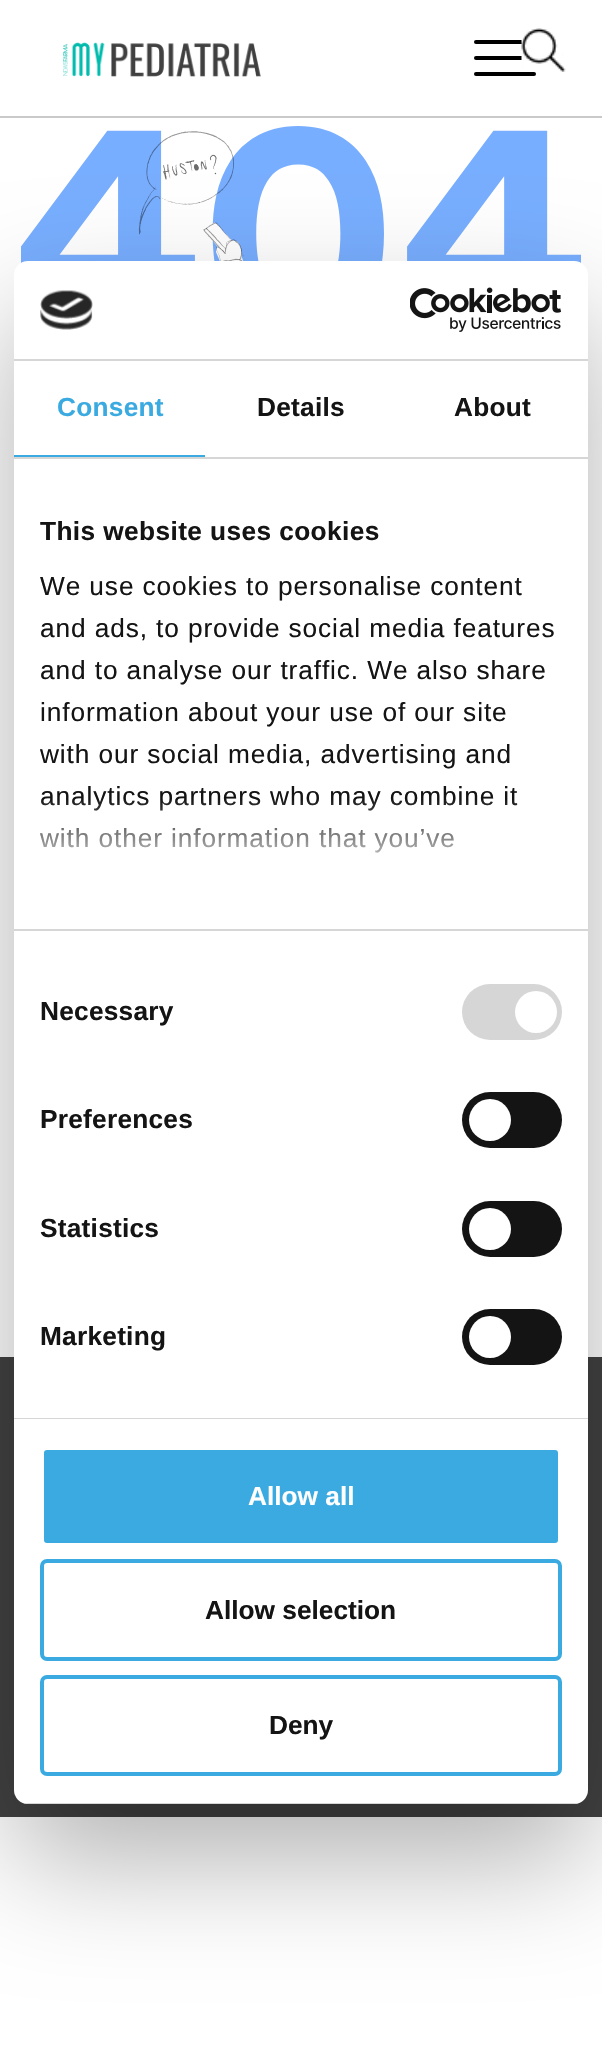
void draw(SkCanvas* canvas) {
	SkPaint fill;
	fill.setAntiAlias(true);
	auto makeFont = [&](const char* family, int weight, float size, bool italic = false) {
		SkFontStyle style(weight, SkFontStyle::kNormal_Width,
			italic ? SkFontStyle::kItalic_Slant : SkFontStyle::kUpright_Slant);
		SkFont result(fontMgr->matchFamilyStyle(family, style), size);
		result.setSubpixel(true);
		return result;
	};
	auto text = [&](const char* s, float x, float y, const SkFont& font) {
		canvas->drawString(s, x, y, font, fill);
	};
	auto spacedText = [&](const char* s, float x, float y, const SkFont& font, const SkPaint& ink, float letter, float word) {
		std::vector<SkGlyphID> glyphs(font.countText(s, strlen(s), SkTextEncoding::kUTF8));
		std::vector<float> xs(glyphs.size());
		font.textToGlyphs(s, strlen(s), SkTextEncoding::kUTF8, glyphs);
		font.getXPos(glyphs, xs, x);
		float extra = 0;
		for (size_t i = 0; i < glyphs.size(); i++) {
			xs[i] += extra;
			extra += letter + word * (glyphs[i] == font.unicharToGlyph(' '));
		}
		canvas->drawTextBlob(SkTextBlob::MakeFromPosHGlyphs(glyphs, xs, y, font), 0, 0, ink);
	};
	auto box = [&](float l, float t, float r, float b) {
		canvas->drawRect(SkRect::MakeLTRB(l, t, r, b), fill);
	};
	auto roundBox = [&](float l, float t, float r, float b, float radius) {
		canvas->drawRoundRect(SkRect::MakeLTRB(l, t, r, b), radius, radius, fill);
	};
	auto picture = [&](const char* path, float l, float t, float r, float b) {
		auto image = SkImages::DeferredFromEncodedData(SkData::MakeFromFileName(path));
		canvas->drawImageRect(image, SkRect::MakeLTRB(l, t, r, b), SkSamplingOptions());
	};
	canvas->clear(0xFFFFFFFF);
	fill.setColor(0xFFC9C9C9);
	box(0, 116, 602, 118);
	picture("image0.png", 63, 42, 261, 77);
	fill.setColor(0xFF000000);
	roundBox(474, 40, 536, 44, 2);
	roundBox(474, 56, 536, 60, 2);
	roundBox(474, 72, 536, 76, 2);
	picture("image1.png", 521, 28, 566, 72);
	picture("image2.png", 21, 126, 581, 263);
	fill.setColor(0xFF434242);
	box(0, 1357, 602, 1817);
	fill.setColor(0x4D000000);
	fill.setMaskFilter(SkMaskFilter::MakeBlur(kNormal_SkBlurStyle, 59.5f));
	canvas->drawRoundRect(SkRect::MakeLTRB(14, 317, 588, 1860), 14, 14, fill);
	fill.setMaskFilter(nullptr);
	fill.setColor(0xFFFFFFFF);
	roundBox(14, 261, 588, 1804, 14);
	fill.setColor(0xFFD6D6D6);
	box(14, 359, 588, 361);
	picture("image3.png", 40, 290, 93, 330);
	picture("image4.png", 410, 287, 562, 332);
	box(14, 457, 588, 459);
	fill.setColor(0xFF3AAAE1);
	box(14, 455, 205, 457);
	fill.setColor(0xFFD6D6D6);
	box(14, 929, 588, 931);
	box(14, 1418, 588, 1419);
	roundBox(462, 984, 562, 1040, 28);
	fill.setColor(0xFFFFFFFF);
	canvas->drawCircle(536, 1012, 21, fill);
	fill.setColor(0xFF141414);
	roundBox(462, 1092, 562, 1148, 28);
	fill.setColor(0xFFFFFFFF);
	canvas->drawCircle(490, 1120, 21, fill);
	fill.setColor(0xFF141414);
	roundBox(462, 1201, 562, 1257, 28);
	fill.setColor(0xFFFFFFFF);
	canvas->drawCircle(490, 1229, 21, fill);
	fill.setColor(0xFF141414);
	roundBox(462, 1309, 562, 1365, 28);
	fill.setColor(0xFFFFFFFF);
	canvas->drawCircle(490, 1337, 21, fill);
	canvas->save();
	canvas->clipPath(SkPathBuilder().moveTo(28, 261).lineTo(574, 261).cubicTo(581.5f, 261, 588, 267.5f, 588, 275).lineTo(588, 1790).cubicTo(588, 1797.5f, 581.5f, 1804, 574, 1804).lineTo(28, 1804).cubicTo(20.5f, 1804, 14, 1797.5f, 14, 1790).lineTo(14, 275).cubicTo(14, 267.5f, 20.5f, 261, 28, 261).close().detach(), true);
	fill.setColor(0xFFD6D6D6);
	box(23, 1803, 579, 1804);
	canvas->restore();
	fill.setColor(0xFF3AAAE1);
	canvas->drawRoundRect(SkRect::MakeLTRB(42, 1448, 560, 1545), 5, 5, fill);
	fill.setStyle(SkPaint::kStroke_Style);
	fill.setStrokeWidth(4);
	fill.setColor(0xFFFFFFFF);
	canvas->drawRoundRect(SkRect::MakeLTRB(42, 1448, 560, 1545), 5, 5, fill);
	fill.setColor(0xFF3AAAE1);
	canvas->drawRoundRect(SkRect::MakeLTRB(42, 1561, 560, 1659), 5, 5, fill);
	canvas->drawRoundRect(SkRect::MakeLTRB(42, 1677, 560, 1774), 5, 5, fill);
	auto font1 = makeFont("Liberation Sans", 700, 26.25f);
	fill.setStyle(SkPaint::kFill_Style);
	spacedText("Consent", 57, 416, font1, fill, 0.25f, 0);
	fill.setColor(0xFF141414);
	spacedText("Details", 257, 416, font1, fill, 0.25f, 0);
	spacedText("About", 454, 416, font1, fill, 0.25f, 0);
	spacedText("This website uses cookies", 40, 540, font1, fill, 0.4f, 0);
	auto font2 = makeFont("Liberation Sans", 400, 26.25f);
	spacedText("We use cookies to personalise content", 40, 595, font2, fill, 0.9f, 0);
	spacedText("and ads, to provide social media features", 40, 637, font2, fill, 0.9f, 0);
	spacedText("and to analyse our traffic. We also share", 40, 679, font2, fill, 0.9f, 0);
	spacedText("information about your use of our site", 40, 721, font2, fill, 0.9f, 0);
	spacedText("with our social media, advertising and", 40, 763, font2, fill, 0.9f, 0);
	spacedText("analytics partners who may combine it", 40, 805, font2, fill, 0.9f, 0);
	spacedText("with other information that you’ve", 40, 847, font2, fill, 0.9f, 0);
	{
		const SkColor colors[] = {0xFFFFFFFF, 0xCCFFFFFF, 0x00FFFFFF};
		const float stops[] = {0, 0.5f, 1};
		const SkPoint ends[] = {{290, 930}, {290, 798}};
		fill.setShader(SkGradientShader::MakeLinear(ends, colors, stops, 3, SkTileMode::kClamp));
		fill.setAlpha(255);
	}
	box(40, 800, 517, 853);
	fill.setShader(nullptr);
	fill.setColor(0xFF141414);
	spacedText("Necessary", 40, 1020, font1, fill, 0.25f, 0);
	spacedText("Preferences", 40, 1128, font1, fill, 0.25f, 0);
	spacedText("Statistics", 40, 1237, font1, fill, 0.25f, 0);
	spacedText("Marketing", 40, 1345, font1, fill, 0.25f, 0);
	fill.setColor(0xFFFFFFFF);
	text("Allow all", 248, 1505, font1);
	fill.setColor(0xFF141414);
	text("Allow selection", 205, 1619, font1);
	text("Deny", 269, 1734, font1);
}
